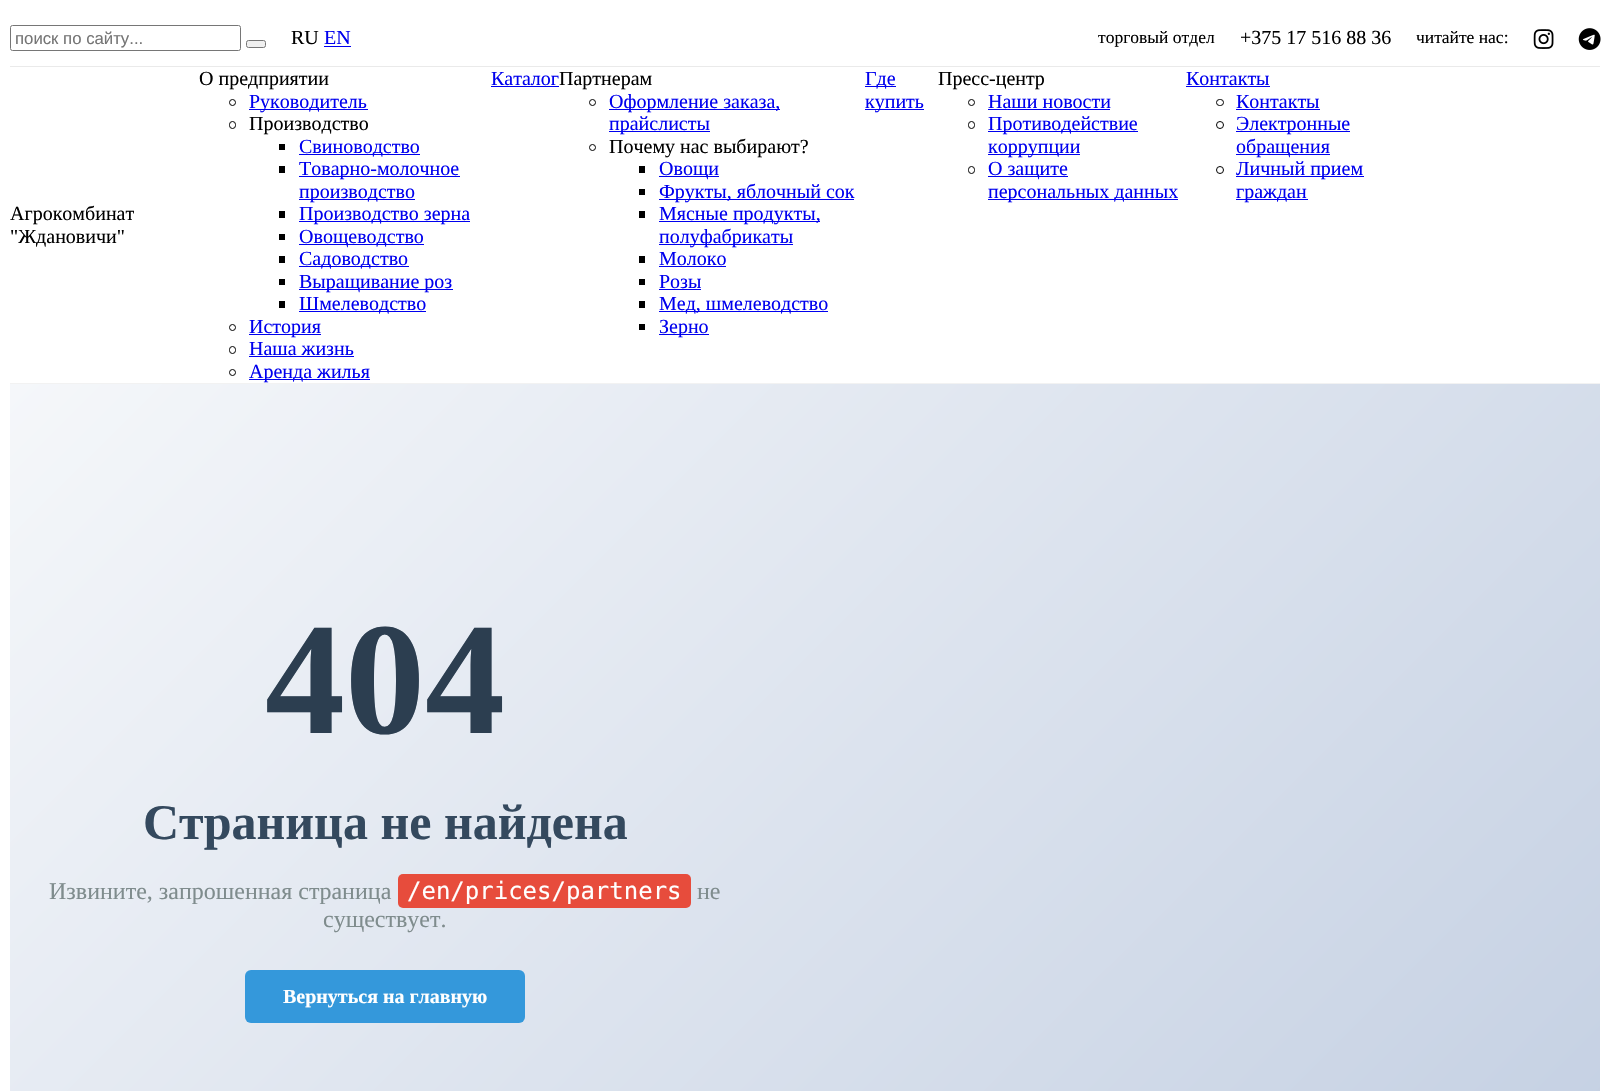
void draw(SkCanvas* canvas) {
	SkPaint fill;
	fill.setAntiAlias(true);
	auto makeFont = [&](const char* family, int weight, float size, bool italic = false) {
		SkFontStyle style(weight, SkFontStyle::kNormal_Width,
			italic ? SkFontStyle::kItalic_Slant : SkFontStyle::kUpright_Slant);
		SkFont result(fontMgr->matchFamilyStyle(family, style), size);
		result.setSubpixel(true);
		return result;
	};
	auto text = [&](const char* s, float x, float y, const SkFont& font) {
		canvas->drawString(s, x, y, font, fill);
	};
	auto box = [&](float l, float t, float r, float b) {
		canvas->drawRect(SkRect::MakeLTRB(l, t, r, b), fill);
	};
	auto roundBox = [&](float l, float t, float r, float b, float radius) {
		canvas->drawRoundRect(SkRect::MakeLTRB(l, t, r, b), radius, radius, fill);
	};
	auto picture = [&](const char* path, float l, float t, float r, float b) {
		auto image = SkImages::DeferredFromEncodedData(SkData::MakeFromFileName(path));
		canvas->drawImageRect(image, SkRect::MakeLTRB(l, t, r, b), SkSamplingOptions());
	};
	canvas->clear(0xFFFFFFFF);
	fill.setColor(0xFFEAEAEA);
	box(10, 66, 1600, 67);
	fill.setStyle(SkPaint::kStroke_Style);
	fill.setStrokeWidth(1);
	fill.setColor(0xFF767676);
	canvas->drawRoundRect(SkRect::MakeLTRB(10.5f, 25.5f, 240.5f, 50.5f), 2, 2, fill);
	fill.setStyle(SkPaint::kFill_Style);
	fill.setColor(0xFFEFEFEF);
	canvas->drawRoundRect(SkRect::MakeLTRB(246.5f, 40.5f, 265.5f, 47.5f), 2, 2, fill);
	fill.setStyle(SkPaint::kStroke_Style);
	fill.setColor(0xFF767676);
	canvas->drawRoundRect(SkRect::MakeLTRB(246.5f, 40.5f, 265.5f, 47.5f), 2, 2, fill);
	fill.setStyle(SkPaint::kFill_Style);
	fill.setColor(0xFF0000EE);
	box(324, 46, 351, 47);
	picture("image0.png", 1533, 29, 1554, 49);
	picture("image1.png", 1578, 28, 1601, 50);
	fill.setColor(0xFFF2F2F2);
	box(10, 383, 1600, 384);
	fill.setStyle(SkPaint::kStroke_Style);
	fill.setColor(0xFF000000);
	canvas->drawCircle(232.5f, 102.5f, 3, fill);
	fill.setStyle(SkPaint::kFill_Style);
	fill.setColor(0xFF0000EE);
	box(249, 109, 368, 110);
	fill.setStyle(SkPaint::kStroke_Style);
	fill.setColor(0xFF000000);
	canvas->drawRoundRect(SkRect::MakeLTRB(229.5f, 121.5f, 235.5f, 128.5f), 3, 3, fill);
	fill.setStyle(SkPaint::kFill_Style);
	box(279, 144, 285, 150);
	fill.setColor(0xFF0000EE);
	box(299, 154, 420, 155);
	fill.setColor(0xFF000000);
	box(279, 166, 285, 173);
	fill.setColor(0xFF0000EE);
	box(299, 176, 460, 177);
	box(299, 199, 415, 200);
	fill.setColor(0xFF000000);
	box(279, 211, 285, 218);
	fill.setColor(0xFF0000EE);
	box(299, 221, 470, 222);
	fill.setColor(0xFF000000);
	box(279, 234, 285, 240);
	fill.setColor(0xFF0000EE);
	box(299, 244, 424, 245);
	fill.setColor(0xFF000000);
	box(279, 256, 285, 263);
	fill.setColor(0xFF0000EE);
	box(299, 266, 409, 267);
	fill.setColor(0xFF000000);
	box(279, 279, 285, 285);
	fill.setColor(0xFF0000EE);
	box(299, 289, 453, 290);
	fill.setColor(0xFF000000);
	box(279, 301, 285, 308);
	fill.setColor(0xFF0000EE);
	box(299, 311, 426, 312);
	fill.setStyle(SkPaint::kStroke_Style);
	fill.setColor(0xFF000000);
	canvas->drawCircle(232.5f, 327.5f, 3, fill);
	fill.setStyle(SkPaint::kFill_Style);
	fill.setColor(0xFF0000EE);
	box(249, 334, 321, 335);
	fill.setStyle(SkPaint::kStroke_Style);
	fill.setColor(0xFF000000);
	canvas->drawRoundRect(SkRect::MakeLTRB(229.5f, 346.5f, 235.5f, 353.5f), 3, 3, fill);
	fill.setStyle(SkPaint::kFill_Style);
	fill.setColor(0xFF0000EE);
	box(249, 356, 354, 357);
	fill.setStyle(SkPaint::kStroke_Style);
	fill.setColor(0xFF000000);
	canvas->drawCircle(232.5f, 372.5f, 3, fill);
	fill.setStyle(SkPaint::kFill_Style);
	fill.setColor(0xFF0000EE);
	box(249, 379, 370, 380);
	box(491, 86, 559, 87);
	fill.setStyle(SkPaint::kStroke_Style);
	fill.setColor(0xFF000000);
	canvas->drawCircle(592.5f, 102.5f, 3, fill);
	fill.setStyle(SkPaint::kFill_Style);
	fill.setColor(0xFF0000EE);
	box(609, 109, 780, 110);
	box(609, 131, 710, 132);
	fill.setStyle(SkPaint::kStroke_Style);
	fill.setColor(0xFF000000);
	canvas->drawCircle(592.5f, 147.5f, 3, fill);
	fill.setStyle(SkPaint::kFill_Style);
	box(639, 166, 645, 173);
	fill.setColor(0xFF0000EE);
	box(659, 176, 719, 177);
	fill.setColor(0xFF000000);
	box(639, 189, 645, 195);
	fill.setColor(0xFF0000EE);
	box(659, 199, 854, 200);
	fill.setColor(0xFF000000);
	box(639, 211, 645, 218);
	fill.setColor(0xFF0000EE);
	box(659, 221, 820, 222);
	box(659, 244, 793, 245);
	fill.setColor(0xFF000000);
	box(639, 256, 645, 263);
	fill.setColor(0xFF0000EE);
	box(659, 266, 726, 267);
	fill.setColor(0xFF000000);
	box(639, 279, 645, 285);
	fill.setColor(0xFF0000EE);
	box(659, 289, 701, 290);
	fill.setColor(0xFF000000);
	box(639, 301, 645, 308);
	fill.setColor(0xFF0000EE);
	box(659, 311, 828, 312);
	fill.setColor(0xFF000000);
	box(639, 324, 645, 330);
	fill.setColor(0xFF0000EE);
	box(659, 334, 709, 335);
	box(865, 86, 896, 87);
	box(865, 109, 924, 110);
	fill.setStyle(SkPaint::kStroke_Style);
	fill.setColor(0xFF000000);
	canvas->drawCircle(971.5f, 102.5f, 3, fill);
	fill.setStyle(SkPaint::kFill_Style);
	fill.setColor(0xFF0000EE);
	box(988, 109, 1110, 110);
	fill.setStyle(SkPaint::kStroke_Style);
	fill.setColor(0xFF000000);
	canvas->drawRoundRect(SkRect::MakeLTRB(968.5f, 121.5f, 974.5f, 128.5f), 3, 3, fill);
	fill.setStyle(SkPaint::kFill_Style);
	fill.setColor(0xFF0000EE);
	box(988, 131, 1138, 132);
	box(988, 154, 1080, 155);
	fill.setStyle(SkPaint::kStroke_Style);
	fill.setColor(0xFF000000);
	canvas->drawRoundRect(SkRect::MakeLTRB(968.5f, 166.5f, 974.5f, 173.5f), 3, 3, fill);
	fill.setStyle(SkPaint::kFill_Style);
	fill.setColor(0xFF0000EE);
	box(988, 176, 1068, 177);
	box(988, 199, 1178, 200);
	box(1186, 86, 1270, 87);
	fill.setStyle(SkPaint::kStroke_Style);
	fill.setColor(0xFF000000);
	canvas->drawRoundRect(SkRect::MakeLTRB(1216.5f, 99.5f, 1223.5f, 105.5f), 3, 3, fill);
	fill.setStyle(SkPaint::kFill_Style);
	fill.setColor(0xFF0000EE);
	box(1236, 109, 1320, 110);
	fill.setStyle(SkPaint::kStroke_Style);
	fill.setColor(0xFF000000);
	canvas->drawCircle(1220, 125, 3.5f, fill);
	fill.setStyle(SkPaint::kFill_Style);
	fill.setColor(0xFF0000EE);
	box(1236, 131, 1350, 132);
	box(1236, 154, 1330, 155);
	fill.setStyle(SkPaint::kStroke_Style);
	fill.setColor(0xFF000000);
	canvas->drawCircle(1220, 170, 3.5f, fill);
	fill.setStyle(SkPaint::kFill_Style);
	fill.setColor(0xFF0000EE);
	box(1236, 176, 1364, 177);
	box(1236, 199, 1308, 200);
	{
		const SkColor colors[] = {0xFFF5F7FA, 0xFFC3CFE2};
		const float stops[] = {0, 1};
		const SkPoint ends[] = {{194, 200}, {1416, 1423}};
		fill.setShader(SkGradientShader::MakeLinear(ends, colors, stops, 2, SkTileMode::kClamp));
		fill.setAlpha(255);
	}
	box(10, 384, 1600, 1091);
	fill.setShader(nullptr);
	fill.setColor(0xFFE74C3C);
	roundBox(398, 874, 691, 908, 5);
	fill.setColor(0xFF3498DB);
	roundBox(245, 970, 525, 1023, 6);
	auto font1 = makeFont("Liberation Sans", 400, 16.75f);
	fill.setColor(0xFF757575);
	text("поиск по сайту...", 15, 44, font1);
	auto font2 = makeFont("Liberation Serif", 400, 20);
	fill.setColor(0xFF000000);
	text("RU", 291, 44, font2);
	fill.setColor(0xFF0000EE);
	text("EN", 324, 44, font2);
	auto font3 = makeFont("Liberation Serif", 400, 17.5f);
	fill.setColor(0xFF000000);
	text("торговый отдел", 1098, 43, font3);
	text("+375 17 516 88 36", 1240, 44, font2);
	text("читайте нас:", 1416, 43, font3);
	text("Агрокомбинат", 10, 220, font2);
	text("\"Ждановичи\"", 10, 243, font2);
	text("О предприятии", 199, 85, font2);
	fill.setColor(0xFF0000EE);
	text("Руководитель", 249, 108, font2);
	fill.setColor(0xFF000000);
	text("Производство", 249, 130, font2);
	fill.setColor(0xFF0000EE);
	text("Свиноводство", 299, 153, font2);
	text("Товарно-молочное", 299, 175, font2);
	text("производство", 299, 198, font2);
	text("Производство зерна", 299, 220, font2);
	text("Овощеводство", 299, 243, font2);
	text("Садоводство", 299, 265, font2);
	text("Выращивание роз", 299, 288, font2);
	text("Шмелеводство", 299, 310, font2);
	text("История", 249, 333, font2);
	text("Наша жизнь", 249, 355, font2);
	text("Аренда жилья", 249, 378, font2);
	text("Каталог", 491, 85, font2);
	fill.setColor(0xFF000000);
	text("Партнерам", 559, 85, font2);
	fill.setColor(0xFF0000EE);
	text("Оформление заказа,", 609, 108, font2);
	text("прайслисты", 609, 130, font2);
	fill.setColor(0xFF000000);
	text("Почему нас выбирают?", 609, 153, font2);
	fill.setColor(0xFF0000EE);
	text("Овощи", 659, 175, font2);
	text("Фрукты, яблочный сок", 659, 198, font2);
	text("Мясные продукты,", 659, 220, font2);
	text("полуфабрикаты", 659, 243, font2);
	text("Молоко", 659, 265, font2);
	text("Розы", 659, 288, font2);
	text("Мед, шмелеводство", 659, 310, font2);
	text("Зерно", 659, 333, font2);
	text("Где", 865, 85, font2);
	text("купить", 865, 108, font2);
	fill.setColor(0xFF000000);
	text("Пресс-центр", 938, 85, font2);
	fill.setColor(0xFF0000EE);
	text("Наши новости", 988, 108, font2);
	text("Противодействие", 988, 130, font2);
	text("коррупции", 988, 153, font2);
	text("О защите", 988, 175, font2);
	text("персональных данных", 988, 198, font2);
	text("Контакты", 1186, 85, font2);
	text("Контакты", 1236, 108, font2);
	text("Электронные", 1236, 130, font2);
	text("обращения", 1236, 153, font2);
	text("Личный прием", 1236, 175, font2);
	text("граждан", 1236, 198, font2);
	auto font4 = makeFont("Liberation Serif", 700, 160);
	fill.setColor(0xFF2C3E50);
	text("404", 265, 733, font4);
	auto font5 = makeFont("Liberation Serif", 700, 50);
	fill.setColor(0xFF34495E);
	text("Страница не найдена", 143, 839, font5);
	auto font6 = makeFont("Liberation Serif", 400, 24);
	fill.setColor(0xFF7F8C8D);
	text("Извините, запрошенная страница", 49, 899, font6);
	auto font7 = makeFont("DejaVu Sans Mono", 400, 24);
	fill.setColor(0xFFFFFFFF);
	text("/en/prices/partners", 407, 899, font7);
	fill.setColor(0xFF7F8C8D);
	text("не", 697, 899, font6);
	text("существует.", 323, 927, font6);
	auto font8 = makeFont("Liberation Serif", 700, 20);
	fill.setColor(0xFFFFFFFF);
	text("Вернуться на главную", 283, 1003, font8);
}
